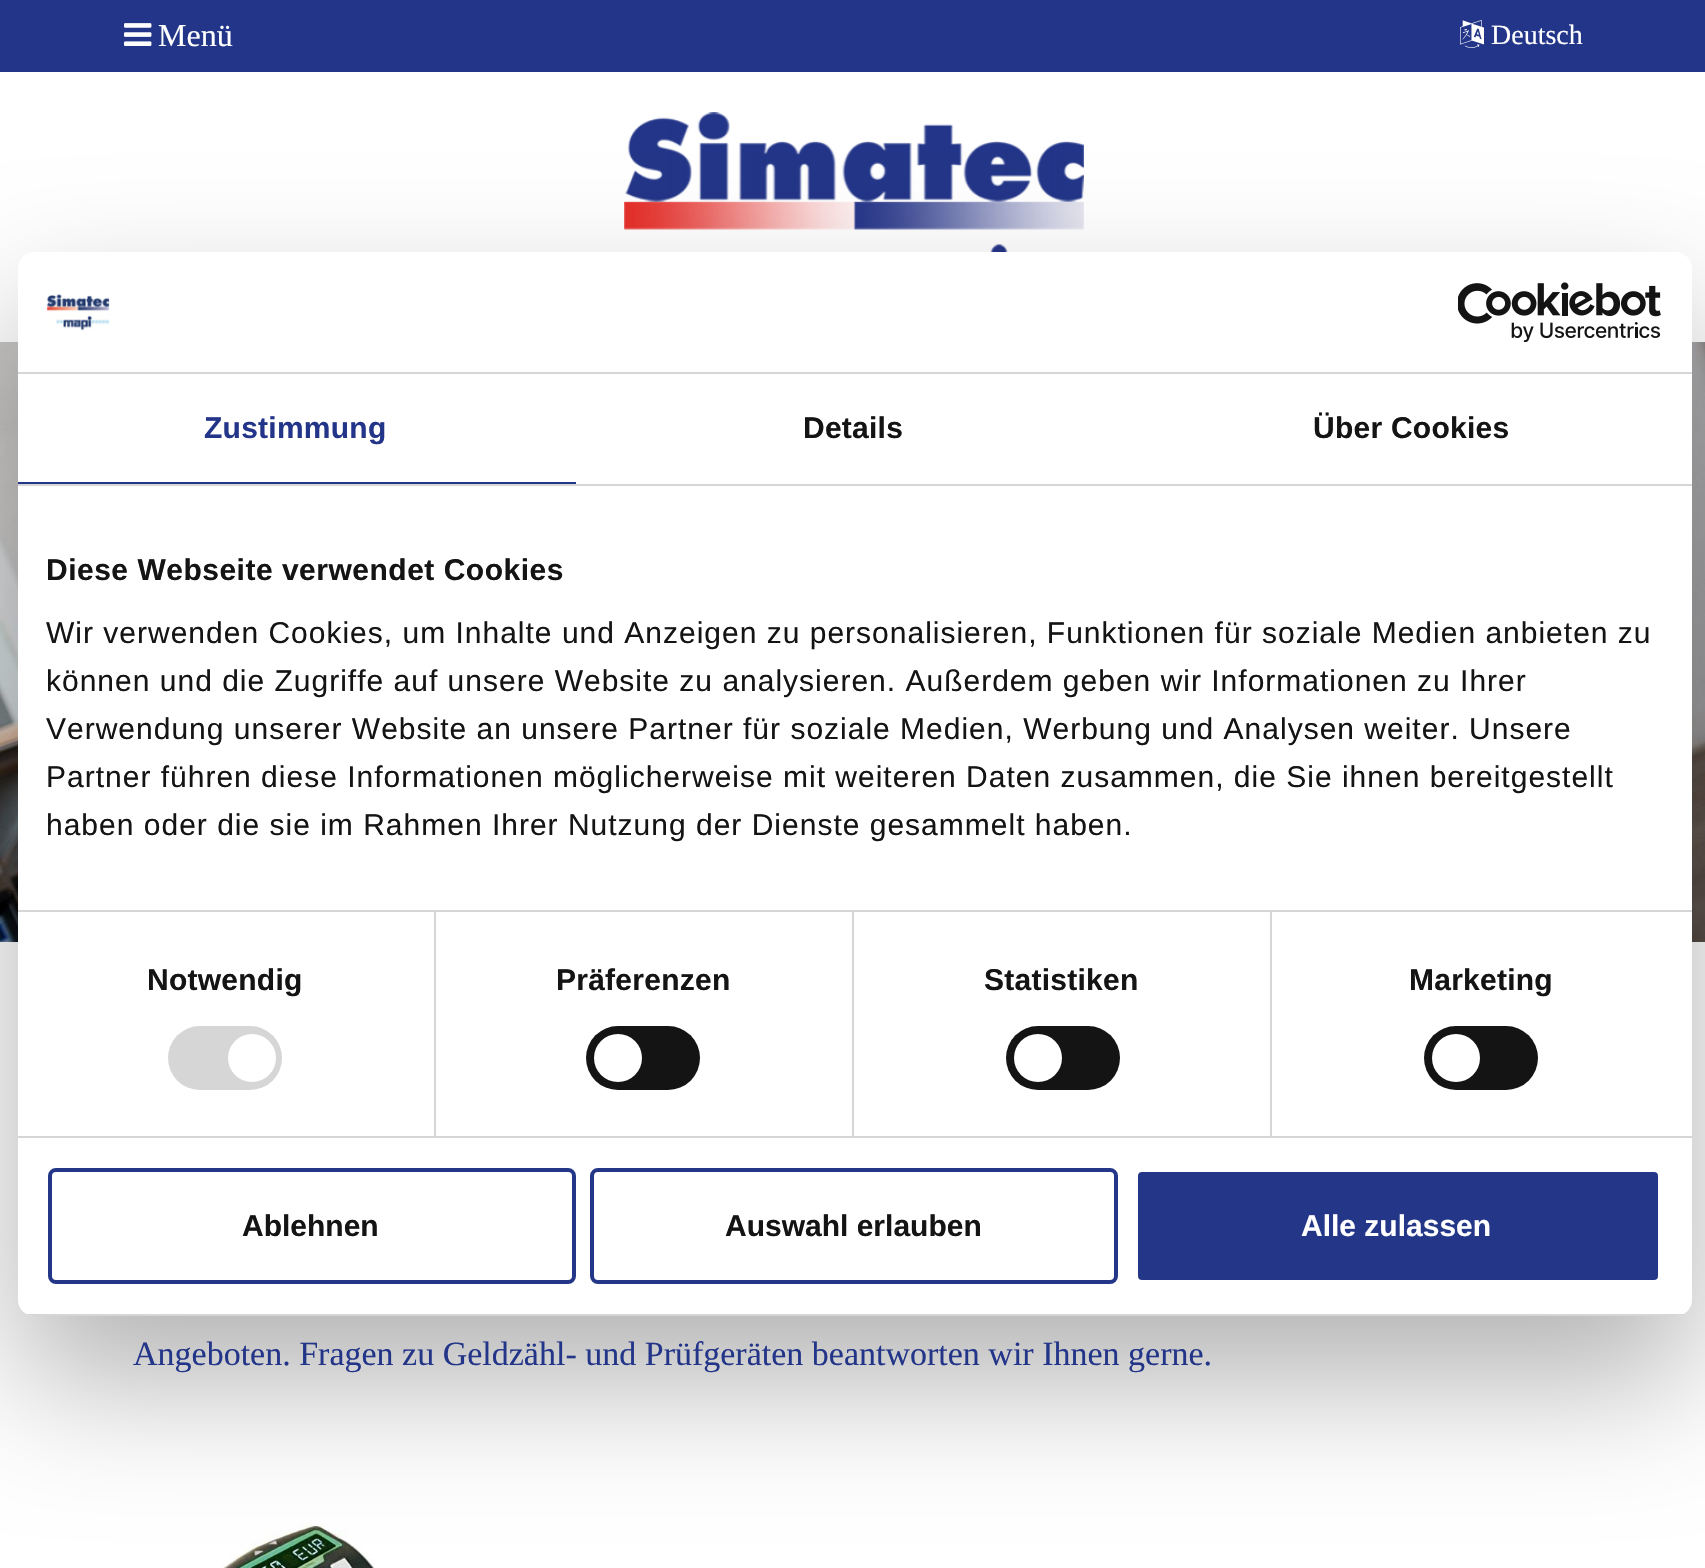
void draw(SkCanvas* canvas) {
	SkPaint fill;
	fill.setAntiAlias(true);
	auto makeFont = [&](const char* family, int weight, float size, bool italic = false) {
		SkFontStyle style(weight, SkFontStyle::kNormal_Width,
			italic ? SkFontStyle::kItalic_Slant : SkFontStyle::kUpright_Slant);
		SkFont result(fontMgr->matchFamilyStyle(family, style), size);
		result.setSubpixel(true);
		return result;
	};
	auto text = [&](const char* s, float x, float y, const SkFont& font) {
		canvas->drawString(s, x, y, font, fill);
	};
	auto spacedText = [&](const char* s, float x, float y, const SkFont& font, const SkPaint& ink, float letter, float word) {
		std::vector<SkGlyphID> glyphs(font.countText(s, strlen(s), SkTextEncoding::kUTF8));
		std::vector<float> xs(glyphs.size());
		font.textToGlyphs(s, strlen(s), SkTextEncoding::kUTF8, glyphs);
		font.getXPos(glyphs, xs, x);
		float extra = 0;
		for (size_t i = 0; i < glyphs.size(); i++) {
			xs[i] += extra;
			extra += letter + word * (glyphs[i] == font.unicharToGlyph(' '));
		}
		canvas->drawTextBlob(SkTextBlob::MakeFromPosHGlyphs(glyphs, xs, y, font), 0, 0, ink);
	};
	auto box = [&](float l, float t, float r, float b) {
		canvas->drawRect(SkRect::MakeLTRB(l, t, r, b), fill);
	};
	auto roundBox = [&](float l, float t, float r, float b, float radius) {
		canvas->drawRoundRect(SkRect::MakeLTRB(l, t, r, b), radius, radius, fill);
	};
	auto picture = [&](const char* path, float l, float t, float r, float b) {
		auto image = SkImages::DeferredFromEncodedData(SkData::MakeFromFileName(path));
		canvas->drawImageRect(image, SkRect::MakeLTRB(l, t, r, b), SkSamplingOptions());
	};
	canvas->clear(0xFFFFFFFF);
	fill.setColor(0xFF233588);
	box(0, 0, 1705, 72);
	picture("image0.png", 124, 23, 152, 46);
	picture("image1.png", 1460, 20, 1484, 48);
	picture("image2.png", 624, 112, 1084, 252);
	picture("image3.png", 0, 342, 1705, 942);
	picture("image4.png", 222, 1523, 375, 1568);
	fill.setColor(0x4D000000);
	fill.setMaskFilter(SkMaskFilter::MakeBlur(kNormal_SkBlurStyle, 68));
	canvas->drawRoundRect(SkRect::MakeLTRB(18, 316, 1692, 1380), 16, 16, fill);
	fill.setMaskFilter(nullptr);
	fill.setColor(0xFFFFFFFF);
	roundBox(18, 252, 1692, 1316, 16);
	fill.setColor(0xFFD6D6D6);
	box(18, 372, 1692, 374);
	picture("image5.png", 46, 294, 110, 331);
	picture("image6.png", 1458, 282, 1661, 342);
	box(18, 484, 1692, 486);
	fill.setColor(0xFF233688);
	box(18, 482, 576, 484);
	fill.setColor(0xFFD6D6D6);
	box(18, 910, 1692, 912);
	box(18, 1136, 1692, 1138);
	box(434, 912, 436, 1136);
	roundBox(168, 1026, 282, 1090, 32);
	fill.setColor(0xFFFFFFFF);
	canvas->drawCircle(252, 1058, 24, fill);
	fill.setColor(0xFFD6D6D6);
	box(852, 912, 854, 1136);
	fill.setColor(0xFF141414);
	roundBox(586, 1026, 700, 1090, 32);
	fill.setColor(0xFFFFFFFF);
	canvas->drawCircle(618, 1058, 24, fill);
	fill.setColor(0xFFD6D6D6);
	box(1270, 912, 1272, 1136);
	fill.setColor(0xFF141414);
	roundBox(1006, 1026, 1120, 1090, 32);
	fill.setColor(0xFFFFFFFF);
	canvas->drawCircle(1038, 1058, 24, fill);
	fill.setColor(0xFF141414);
	roundBox(1424, 1026, 1538, 1090, 32);
	fill.setColor(0xFFFFFFFF);
	canvas->drawCircle(1456, 1058, 24, fill);
	canvas->save();
	canvas->clipPath(SkPathBuilder().moveTo(34, 252).lineTo(1676, 252).cubicTo(1685, 252, 1692, 259, 1692, 268).lineTo(1692, 1300).cubicTo(1692, 1309, 1685, 1316, 1676, 1316).lineTo(34, 1316).cubicTo(25, 1316, 18, 1309, 18, 1300).lineTo(18, 268).cubicTo(18, 259, 25, 252, 34, 252).close().detach(), true);
	fill.setColor(0xFFD6D6D6);
	box(18, 1314, 1692, 1316);
	canvas->restore();
	fill.setStyle(SkPaint::kStroke_Style);
	fill.setStrokeWidth(4);
	fill.setColor(0xFF233688);
	canvas->drawRoundRect(SkRect::MakeLTRB(50, 1170, 574, 1282), 6, 6, fill);
	canvas->drawRoundRect(SkRect::MakeLTRB(592, 1170, 1116, 1282), 6, 6, fill);
	fill.setStyle(SkPaint::kFill_Style);
	canvas->drawRoundRect(SkRect::MakeLTRB(1136, 1170, 1660, 1282), 6, 6, fill);
	fill.setStyle(SkPaint::kStroke_Style);
	fill.setColor(0xFFFFFFFF);
	canvas->drawRoundRect(SkRect::MakeLTRB(1136, 1170, 1660, 1282), 6, 6, fill);
	auto font1 = makeFont("Liberation Serif", 400, 32);
	fill.setStyle(SkPaint::kFill_Style);
	text("Menü", 158, 46, font1);
	auto font2 = makeFont("Liberation Serif", 400, 28);
	text("Deutsch", 1491, 44, font2);
	auto font3 = makeFont("Liberation Serif", 400, 34);
	fill.setColor(0xFF233588);
	text("Angeboten. Fragen zu Geldzähl- und Prüfgeräten beantworten wir Ihnen gerne.", 133, 1365, font3);
	auto font4 = makeFont("Liberation Sans", 700, 30);
	spacedText("Zustimmung", 204, 438, font4, fill, 0.25f, 0);
	fill.setColor(0xFF141414);
	spacedText("Details", 803, 438, font4, fill, 0.25f, 0);
	spacedText("Über Cookies", 1313, 438, font4, fill, 0.25f, 0);
	spacedText("Diese Webseite verwendet Cookies", 46, 580, font4, fill, 0.5f, 0);
	auto font5 = makeFont("Liberation Sans", 400, 30);
	spacedText("Wir verwenden Cookies, um Inhalte und Anzeigen zu personalisieren, Funktionen für soziale Medien anbieten zu", 46, 643, font5, fill, 1, 0);
	spacedText("können und die Zugriffe auf unsere Website zu analysieren. Außerdem geben wir Informationen zu Ihrer", 46, 691, font5, fill, 1, 0);
	spacedText("Verwendung unserer Website an unsere Partner für soziale Medien, Werbung und Analysen weiter. Unsere", 46, 739, font5, fill, 1, 0);
	spacedText("Partner führen diese Informationen möglicherweise mit weiteren Daten zusammen, die Sie ihnen bereitgestellt", 46, 787, font5, fill, 1, 0);
	spacedText("haben oder die sie im Rahmen Ihrer Nutzung der Dienste gesammelt haben.", 46, 835, font5, fill, 1, 0);
	spacedText("Notwendig", 147, 990, font4, fill, 0.25f, 0);
	spacedText("Präferenzen", 556, 990, font4, fill, 0.25f, 0);
	spacedText("Statistiken", 984, 990, font4, fill, 0.25f, 0);
	spacedText("Marketing", 1409, 990, font4, fill, 0.25f, 0);
	text("Ablehnen", 242, 1236, font4);
	text("Auswahl erlauben", 725, 1236, font4);
	fill.setColor(0xFFFFFFFF);
	text("Alle zulassen", 1301, 1236, font4);
}
